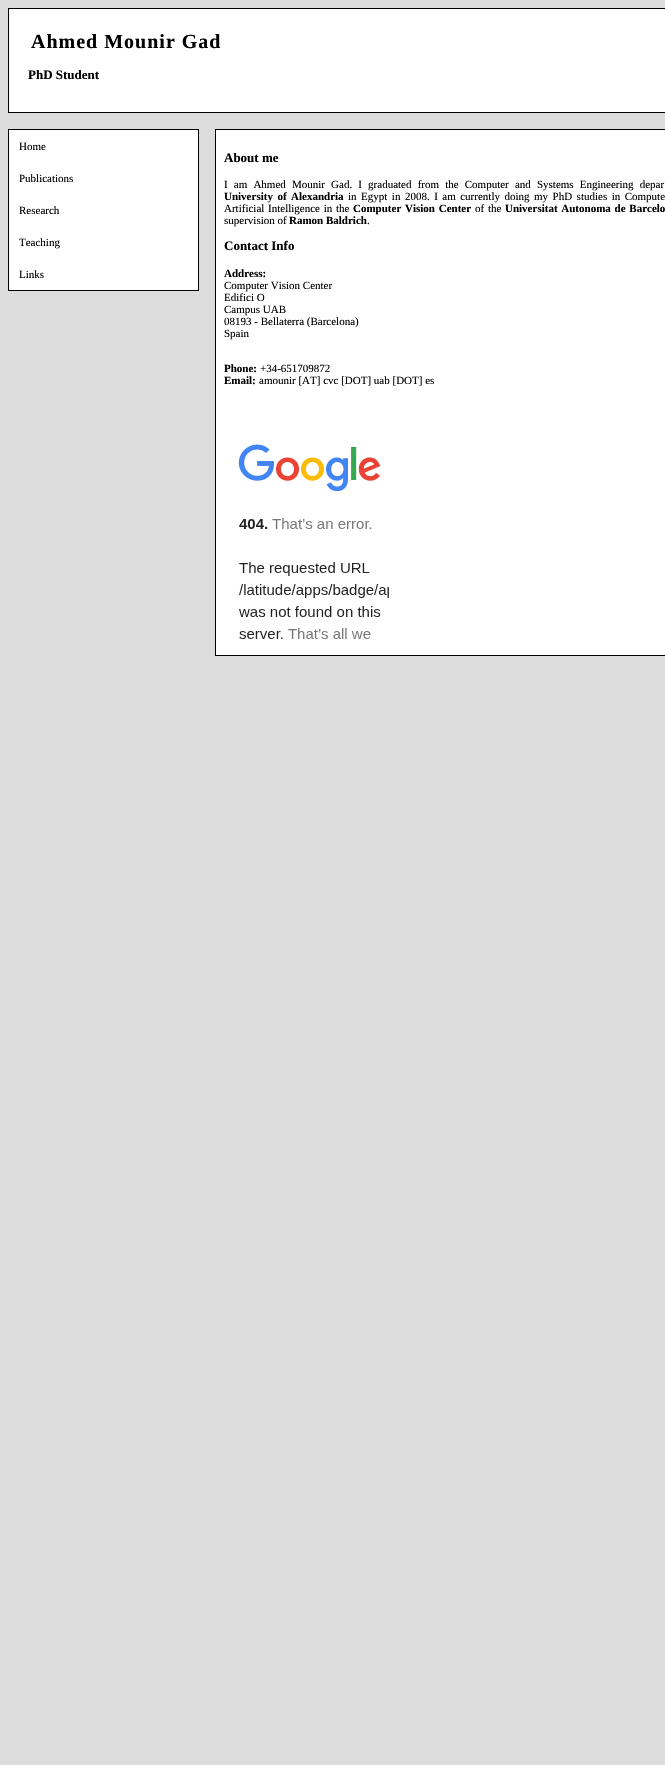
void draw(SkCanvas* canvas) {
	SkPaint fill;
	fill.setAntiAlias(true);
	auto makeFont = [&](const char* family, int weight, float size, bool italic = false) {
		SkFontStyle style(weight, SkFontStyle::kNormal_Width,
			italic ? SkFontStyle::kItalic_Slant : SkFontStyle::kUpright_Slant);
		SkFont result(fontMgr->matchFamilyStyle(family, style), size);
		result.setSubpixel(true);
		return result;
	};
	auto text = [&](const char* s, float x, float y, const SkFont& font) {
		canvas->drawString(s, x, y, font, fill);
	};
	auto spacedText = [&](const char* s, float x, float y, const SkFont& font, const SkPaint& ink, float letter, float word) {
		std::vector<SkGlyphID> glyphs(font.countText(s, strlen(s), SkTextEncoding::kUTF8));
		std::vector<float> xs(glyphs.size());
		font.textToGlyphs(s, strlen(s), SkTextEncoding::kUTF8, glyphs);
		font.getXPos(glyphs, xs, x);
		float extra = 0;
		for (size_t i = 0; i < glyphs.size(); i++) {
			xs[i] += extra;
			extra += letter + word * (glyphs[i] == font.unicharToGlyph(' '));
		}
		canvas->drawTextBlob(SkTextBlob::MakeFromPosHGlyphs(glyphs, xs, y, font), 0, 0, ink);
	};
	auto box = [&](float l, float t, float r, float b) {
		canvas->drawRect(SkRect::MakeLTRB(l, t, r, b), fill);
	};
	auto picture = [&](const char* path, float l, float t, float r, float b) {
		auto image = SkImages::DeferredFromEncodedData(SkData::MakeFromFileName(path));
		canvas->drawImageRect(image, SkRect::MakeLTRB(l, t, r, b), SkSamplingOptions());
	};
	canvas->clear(0xFFDDDDDD);
	fill.setColor(0xFF000000);
	box(8, 8, 665, 113);
	fill.setColor(0xFFFFFFFF);
	box(9, 9, 665, 112);
	canvas->drawRect(SkRect::MakeLTRB(8.5f, 129.5f, 198.5f, 290.5f), fill);
	fill.setStyle(SkPaint::kStroke_Style);
	fill.setStrokeWidth(1);
	fill.setColor(0xFF000000);
	canvas->drawRect(SkRect::MakeLTRB(8.5f, 129.5f, 198.5f, 290.5f), fill);
	fill.setStyle(SkPaint::kFill_Style);
	box(215, 129, 665, 656);
	fill.setColor(0xFFFFFFFF);
	box(216, 130, 665, 655);
	picture("image0.png", 238, 444, 389, 639);
	auto font1 = makeFont("Liberation Serif", 700, 20);
	fill.setColor(0xFF000000);
	spacedText("Ahmed Mounir Gad", 31, 48, font1, fill, 1, 0);
	auto font2 = makeFont("Liberation Serif", 700, 13);
	text("PhD Student", 28, 79, font2);
	auto font3 = makeFont("Liberation Serif", 400, 11);
	text("Home", 19, 150, font3);
	text("Publications", 19, 182, font3);
	text("Research", 19, 214, font3);
	text("Teaching", 19, 246, font3);
	text("Links", 19, 278, font3);
	text("About me", 224, 162, font2);
	spacedText("I am Ahmed Mounir Gad. I graduated from the Computer and Systems Engineering depar", 224, 188, font3, fill, 0, 3.4f);
	auto font4 = makeFont("Liberation Serif", 700, 11);
	spacedText("University of Alexandria", 224, 200, font4, fill, 0, 1.75f);
	spacedText("in Egypt in 2008. I am currently doing my PhD studies in Compute", 348, 200, font3, fill, 0, 1.75f);
	spacedText("Artificial Intelligence in the", 224, 212, font3, fill, 0, 1);
	spacedText("Computer Vision Center", 353, 212, font4, fill, 0, 1);
	spacedText("of the", 475, 212, font3, fill, 0, 1);
	spacedText("Universitat Autonoma de Barcelo", 505, 212, font4, fill, 0, 1);
	text("supervision of", 224, 224, font3);
	text("Ramon Baldrich", 289, 224, font4);
	text(".", 367, 224, font3);
	text("Contact Info", 224, 250, font2);
	text("Address:", 224, 277, font4);
	text("Computer Vision Center", 224, 289, font3);
	text("Edifici O", 224, 301, font3);
	text("Campus UAB", 224, 313, font3);
	text("08193 - Bellaterra (Barcelona)", 224, 325, font3);
	text("Spain", 224, 337, font3);
	text("Phone:", 224, 372, font4);
	text("+34-651709872", 260, 372, font3);
	text("Email:", 224, 384, font4);
	text("amounir [AT] cvc [DOT] uab [DOT] es", 259, 384, font3);
}
